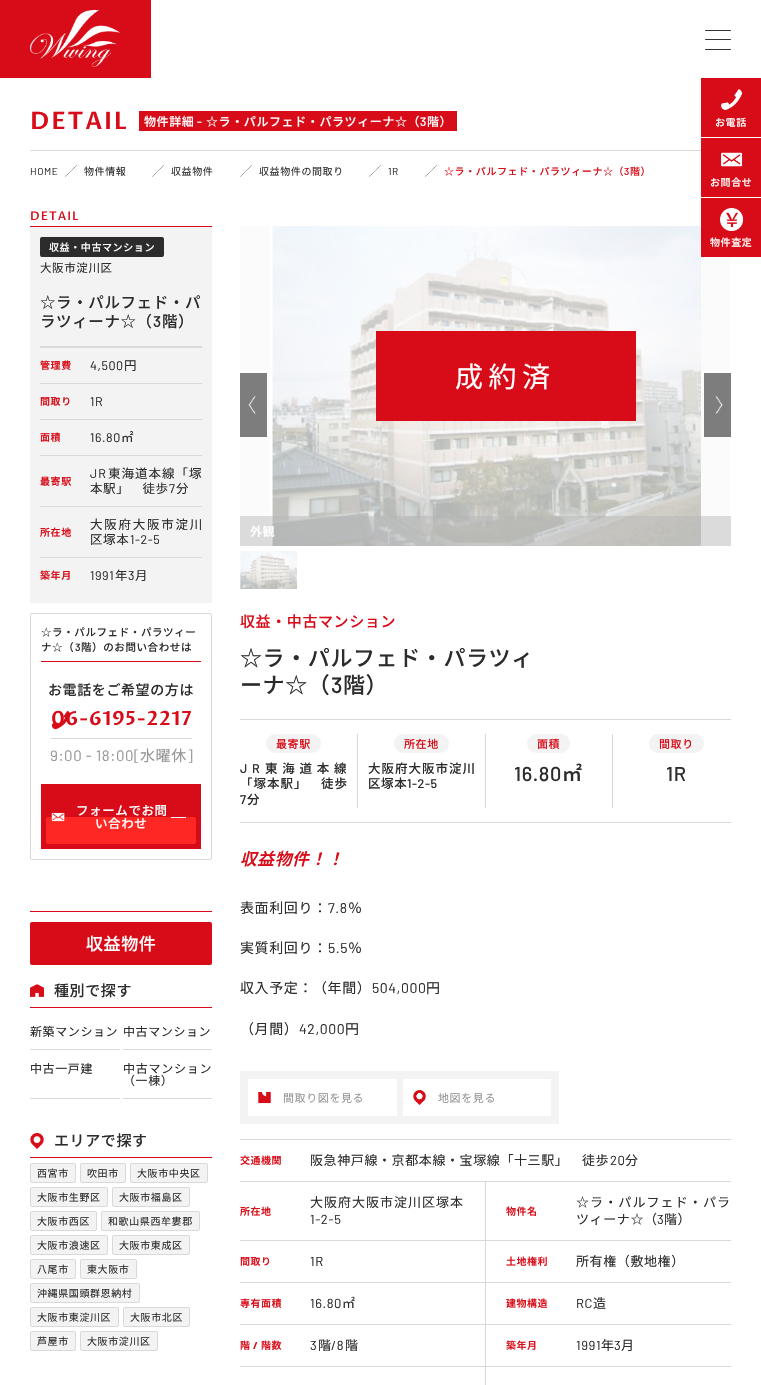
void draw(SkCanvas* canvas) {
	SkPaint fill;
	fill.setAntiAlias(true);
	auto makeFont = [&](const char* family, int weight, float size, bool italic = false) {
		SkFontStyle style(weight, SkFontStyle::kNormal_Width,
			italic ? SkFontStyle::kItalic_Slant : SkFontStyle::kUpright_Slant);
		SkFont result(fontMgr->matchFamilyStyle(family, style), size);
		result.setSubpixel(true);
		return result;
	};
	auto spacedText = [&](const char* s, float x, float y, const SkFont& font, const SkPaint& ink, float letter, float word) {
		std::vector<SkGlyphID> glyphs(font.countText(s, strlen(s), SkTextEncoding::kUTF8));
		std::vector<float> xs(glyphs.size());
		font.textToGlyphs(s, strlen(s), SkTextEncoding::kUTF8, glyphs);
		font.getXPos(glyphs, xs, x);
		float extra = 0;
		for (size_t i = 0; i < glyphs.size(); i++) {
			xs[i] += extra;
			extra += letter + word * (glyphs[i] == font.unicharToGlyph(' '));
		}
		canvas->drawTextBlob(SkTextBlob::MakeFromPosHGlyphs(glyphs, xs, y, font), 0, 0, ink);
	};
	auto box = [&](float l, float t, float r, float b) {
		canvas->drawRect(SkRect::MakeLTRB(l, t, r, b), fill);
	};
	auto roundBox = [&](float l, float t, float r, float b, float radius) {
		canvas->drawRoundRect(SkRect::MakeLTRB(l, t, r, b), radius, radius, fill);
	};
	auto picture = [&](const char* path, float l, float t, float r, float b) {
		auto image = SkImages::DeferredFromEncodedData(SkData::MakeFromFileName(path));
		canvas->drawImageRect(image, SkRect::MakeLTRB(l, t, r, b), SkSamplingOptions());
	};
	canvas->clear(0xFFFFFFFF);
	fill.setColor(0xFFD9D9D9);
	box(30, 150, 701, 151);
	fill.setColor(0xFFD80C18);
	box(139, 111, 457, 131);
	picture("image0.png", 65, 165, 77, 177);
	picture("image0.png", 152, 165, 164, 177);
	picture("image0.png", 240, 165, 252, 177);
	picture("image0.png", 369, 165, 381, 177);
	picture("image0.png", 425, 165, 437, 177);
	fill.setColor(0xFFF3F3F3);
	box(30, 227, 212, 603);
	fill.setColor(0xFFD80C18);
	box(30, 226, 212, 227);
	fill.setColor(0xFF2C2C2C);
	roundBox(40, 237, 164, 257, 2);
	fill.setColor(0xFFD9D9D9);
	box(40, 346, 202, 348);
	box(40, 383, 202, 384);
	box(40, 419, 202, 420);
	box(40, 455, 202, 456);
	box(40, 506, 202, 507);
	box(40, 557, 202, 558);
	fill.setStyle(SkPaint::kStroke_Style);
	fill.setStrokeWidth(1);
	canvas->drawRoundRect(SkRect::MakeLTRB(30.5f, 613.5f, 211.5f, 859.5f), 1.5f, 1.5f, fill);
	fill.setStyle(SkPaint::kFill_Style);
	fill.setColor(0xFFD80C18);
	box(41, 661, 201, 662);
	picture("image1.png", 51, 710, 71, 730);
	fill.setColor(0xFFD9D9D9);
	box(51, 738, 192, 739);
	fill.setColor(0xFFD80C18);
	box(46, 789, 196, 844);
	fill.setStyle(SkPaint::kStroke_Style);
	fill.setStrokeWidth(5);
	canvas->drawPath(SkPathBuilder().moveTo(43.5f, 786.5f).lineTo(198.5f, 786.5f).lineTo(198.5f, 846.5f).lineTo(43.5f, 846.5f).close().detach(), fill);
	fill.setStyle(SkPaint::kFill_Style);
	fill.setColor(0xFFFF2724);
	roundBox(46, 817, 196, 844, 2);
	picture("image2.png", 51, 812, 65, 822);
	fill.setColor(0xFFFFFFFF);
	box(171, 817, 186, 818);
	fill.setColor(0xFFD80C18);
	box(30, 911, 212, 912);
	roundBox(30, 922, 212, 965, 2);
	picture("image3.png", 30, 984, 44, 997);
	box(30, 1007, 212, 1008);
	fill.setColor(0xFFD9D9D9);
	box(30, 1049, 120, 1050);
	box(123, 1049, 212, 1050);
	box(30, 1098, 120, 1099);
	box(123, 1098, 212, 1099);
	picture("image4.png", 30, 1133, 44, 1149);
	fill.setColor(0xFFD80C18);
	box(30, 1157, 212, 1158);
	fill.setColor(0xFFF3F3F3);
	canvas->drawRoundRect(SkRect::MakeLTRB(30.5f, 1163.5f, 75.5f, 1182.5f), 1.5f, 1.5f, fill);
	fill.setStyle(SkPaint::kStroke_Style);
	fill.setStrokeWidth(1);
	fill.setColor(0xFFD9D9D9);
	canvas->drawRoundRect(SkRect::MakeLTRB(30.5f, 1163.5f, 75.5f, 1182.5f), 1.5f, 1.5f, fill);
	fill.setStyle(SkPaint::kFill_Style);
	fill.setColor(0xFFF3F3F3);
	canvas->drawRoundRect(SkRect::MakeLTRB(80.5f, 1163.5f, 125.5f, 1182.5f), 1.5f, 1.5f, fill);
	fill.setStyle(SkPaint::kStroke_Style);
	fill.setColor(0xFFD9D9D9);
	canvas->drawRoundRect(SkRect::MakeLTRB(80.5f, 1163.5f, 125.5f, 1182.5f), 1.5f, 1.5f, fill);
	fill.setStyle(SkPaint::kFill_Style);
	fill.setColor(0xFFF3F3F3);
	canvas->drawRoundRect(SkRect::MakeLTRB(130.5f, 1163.5f, 207.5f, 1182.5f), 1.5f, 1.5f, fill);
	fill.setStyle(SkPaint::kStroke_Style);
	fill.setColor(0xFFD9D9D9);
	canvas->drawRoundRect(SkRect::MakeLTRB(130.5f, 1163.5f, 207.5f, 1182.5f), 1.5f, 1.5f, fill);
	fill.setStyle(SkPaint::kFill_Style);
	fill.setColor(0xFFF3F3F3);
	canvas->drawRoundRect(SkRect::MakeLTRB(30.5f, 1187.5f, 107.5f, 1206.5f), 1.5f, 1.5f, fill);
	fill.setStyle(SkPaint::kStroke_Style);
	fill.setColor(0xFFD9D9D9);
	canvas->drawRoundRect(SkRect::MakeLTRB(30.5f, 1187.5f, 107.5f, 1206.5f), 1.5f, 1.5f, fill);
	fill.setStyle(SkPaint::kFill_Style);
	fill.setColor(0xFFF3F3F3);
	canvas->drawRoundRect(SkRect::MakeLTRB(112.5f, 1187.5f, 189.5f, 1206.5f), 1.5f, 1.5f, fill);
	fill.setStyle(SkPaint::kStroke_Style);
	fill.setColor(0xFFD9D9D9);
	canvas->drawRoundRect(SkRect::MakeLTRB(112.5f, 1187.5f, 189.5f, 1206.5f), 1.5f, 1.5f, fill);
	fill.setStyle(SkPaint::kFill_Style);
	fill.setColor(0xFFF3F3F3);
	canvas->drawRoundRect(SkRect::MakeLTRB(30.5f, 1211.5f, 96.5f, 1230.5f), 1.5f, 1.5f, fill);
	fill.setStyle(SkPaint::kStroke_Style);
	fill.setColor(0xFFD9D9D9);
	canvas->drawRoundRect(SkRect::MakeLTRB(30.5f, 1211.5f, 96.5f, 1230.5f), 1.5f, 1.5f, fill);
	fill.setStyle(SkPaint::kFill_Style);
	fill.setColor(0xFFF3F3F3);
	canvas->drawRoundRect(SkRect::MakeLTRB(101.5f, 1211.5f, 199.5f, 1230.5f), 1.5f, 1.5f, fill);
	fill.setStyle(SkPaint::kStroke_Style);
	fill.setColor(0xFFD9D9D9);
	canvas->drawRoundRect(SkRect::MakeLTRB(101.5f, 1211.5f, 199.5f, 1230.5f), 1.5f, 1.5f, fill);
	fill.setStyle(SkPaint::kFill_Style);
	fill.setColor(0xFFF3F3F3);
	canvas->drawRoundRect(SkRect::MakeLTRB(30.5f, 1235.5f, 107.5f, 1254.5f), 1.5f, 1.5f, fill);
	fill.setStyle(SkPaint::kStroke_Style);
	fill.setColor(0xFFD9D9D9);
	canvas->drawRoundRect(SkRect::MakeLTRB(30.5f, 1235.5f, 107.5f, 1254.5f), 1.5f, 1.5f, fill);
	fill.setStyle(SkPaint::kFill_Style);
	fill.setColor(0xFFF3F3F3);
	canvas->drawRoundRect(SkRect::MakeLTRB(112.5f, 1235.5f, 189.5f, 1254.5f), 1.5f, 1.5f, fill);
	fill.setStyle(SkPaint::kStroke_Style);
	fill.setColor(0xFFD9D9D9);
	canvas->drawRoundRect(SkRect::MakeLTRB(112.5f, 1235.5f, 189.5f, 1254.5f), 1.5f, 1.5f, fill);
	fill.setStyle(SkPaint::kFill_Style);
	fill.setColor(0xFFF3F3F3);
	canvas->drawRoundRect(SkRect::MakeLTRB(30.5f, 1259.5f, 75.5f, 1278.5f), 1.5f, 1.5f, fill);
	fill.setStyle(SkPaint::kStroke_Style);
	fill.setColor(0xFFD9D9D9);
	canvas->drawRoundRect(SkRect::MakeLTRB(30.5f, 1259.5f, 75.5f, 1278.5f), 1.5f, 1.5f, fill);
	fill.setStyle(SkPaint::kFill_Style);
	fill.setColor(0xFFF3F3F3);
	canvas->drawRoundRect(SkRect::MakeLTRB(80.5f, 1259.5f, 136.5f, 1278.5f), 1.5f, 1.5f, fill);
	fill.setStyle(SkPaint::kStroke_Style);
	fill.setColor(0xFFD9D9D9);
	canvas->drawRoundRect(SkRect::MakeLTRB(80.5f, 1259.5f, 136.5f, 1278.5f), 1.5f, 1.5f, fill);
	fill.setStyle(SkPaint::kFill_Style);
	fill.setColor(0xFFF3F3F3);
	canvas->drawRoundRect(SkRect::MakeLTRB(30.5f, 1283.5f, 139.5f, 1302.5f), 1.5f, 1.5f, fill);
	fill.setStyle(SkPaint::kStroke_Style);
	fill.setColor(0xFFD9D9D9);
	canvas->drawRoundRect(SkRect::MakeLTRB(30.5f, 1283.5f, 139.5f, 1302.5f), 1.5f, 1.5f, fill);
	fill.setStyle(SkPaint::kFill_Style);
	fill.setColor(0xFFF3F3F3);
	canvas->drawRoundRect(SkRect::MakeLTRB(30.5f, 1307.5f, 118.5f, 1326.5f), 1.5f, 1.5f, fill);
	fill.setStyle(SkPaint::kStroke_Style);
	fill.setColor(0xFFD9D9D9);
	canvas->drawRoundRect(SkRect::MakeLTRB(30.5f, 1307.5f, 118.5f, 1326.5f), 1.5f, 1.5f, fill);
	fill.setStyle(SkPaint::kFill_Style);
	fill.setColor(0xFFF3F3F3);
	canvas->drawRoundRect(SkRect::MakeLTRB(123.5f, 1307.5f, 189.5f, 1326.5f), 1.5f, 1.5f, fill);
	fill.setStyle(SkPaint::kStroke_Style);
	fill.setColor(0xFFD9D9D9);
	canvas->drawRoundRect(SkRect::MakeLTRB(123.5f, 1307.5f, 189.5f, 1326.5f), 1.5f, 1.5f, fill);
	fill.setStyle(SkPaint::kFill_Style);
	fill.setColor(0xFFF3F3F3);
	canvas->drawRoundRect(SkRect::MakeLTRB(30.5f, 1331.5f, 75.5f, 1350.5f), 1.5f, 1.5f, fill);
	fill.setStyle(SkPaint::kStroke_Style);
	fill.setColor(0xFFD9D9D9);
	canvas->drawRoundRect(SkRect::MakeLTRB(30.5f, 1331.5f, 75.5f, 1350.5f), 1.5f, 1.5f, fill);
	fill.setStyle(SkPaint::kFill_Style);
	fill.setColor(0xFFF3F3F3);
	canvas->drawRoundRect(SkRect::MakeLTRB(80.5f, 1331.5f, 157.5f, 1350.5f), 1.5f, 1.5f, fill);
	fill.setStyle(SkPaint::kStroke_Style);
	fill.setColor(0xFFD9D9D9);
	canvas->drawRoundRect(SkRect::MakeLTRB(80.5f, 1331.5f, 157.5f, 1350.5f), 1.5f, 1.5f, fill);
	fill.setStyle(SkPaint::kFill_Style);
	fill.setColor(0xFFFBFBFB);
	box(240, 226, 730, 546);
	picture("image7.png", 270, 226, 701, 546);
	fill.setColor(0xFFD80C18);
	box(376, 331, 636, 421);
	picture("image5.png", 240, 373, 267, 437);
	picture("image6.png", 704, 373, 731, 437);
	fill.setColor(0x73B3B3B3);
	box(240, 516, 731, 546);
	picture("image8.png", 240, 551, 297, 589);
	fill.setColor(0xFFD9D9D9);
	box(240, 719, 731, 720);
	box(240, 822, 731, 823);
	box(357, 734, 358, 808);
	fill.setColor(0xFFF3F3F3);
	roundBox(266, 734, 321, 753, 9.5f);
	fill.setColor(0xFFD9D9D9);
	box(485, 734, 486, 808);
	fill.setColor(0xFFF3F3F3);
	roundBox(394, 734, 449, 753, 9.5f);
	fill.setColor(0xFFD9D9D9);
	box(612, 734, 613, 808);
	fill.setColor(0xFFF3F3F3);
	roundBox(527, 734, 570, 753, 9.5f);
	roundBox(649, 734, 704, 753, 9.5f);
	box(240, 1071, 559, 1124);
	fill.setColor(0xFFFFFFFF);
	box(248, 1079, 397, 1116);
	picture("image9.png", 258, 1091, 271, 1104);
	box(403, 1079, 551, 1116);
	picture("image10.png", 413, 1090, 426, 1105);
	fill.setColor(0xFFD9D9D9);
	box(240, 1139, 731, 1140);
	box(240, 1181, 731, 1182);
	box(485, 1182, 486, 1385);
	box(240, 1240, 731, 1241);
	box(240, 1282, 731, 1283);
	box(240, 1324, 731, 1325);
	box(240, 1366, 731, 1367);
	fill.setColor(0xFFD80C18);
	box(0, 0, 151, 78);
	picture("image11.png", 30, 10, 120, 67);
	fill.setColor(0xFF333333);
	roundBox(705, 30, 731, 31, 0.5f);
	roundBox(705, 39, 731, 40, 0.5f);
	roundBox(705, 49, 731, 50, 0.5f);
	fill.setColor(0xFFD80C18);
	box(701, 78, 761, 137);
	picture("image12.png", 721, 89, 743, 110);
	box(701, 138, 761, 197);
	picture("image13.png", 721, 152, 743, 167);
	box(701, 198, 761, 257);
	picture("image14.png", 720, 208, 743, 231);
	auto font1 = makeFont("Proza Libre", 600, 24);
	spacedText("DETAIL", 30, 129, font1, fill, 1.75f, 0);
	auto font2 = makeFont("Noto Sans JP", 500, 12);
	fill.setColor(0xFFFFFFFF);
	spacedText("物件詳細", 144, 126, font2, fill, 0.6f, 0);
	auto font3 = makeFont("Barlow", 500, 12);
	spacedText("-", 197, 126, font3, fill, 0.6f, 0);
	spacedText("☆ラ・パルフェド・パラツィーナ☆（", 206, 126, font2, fill, 0.6f, 0);
	spacedText("3", 420, 126, font3, fill, 0.6f, 0);
	spacedText("階）", 427, 126, font2, fill, 0.6f, 0);
	auto font4 = makeFont("Barlow", 400, 10);
	fill.setColor(0xFF2C2C2C);
	spacedText("HOME", 30, 175, font4, fill, 0.6f, 0);
	auto font5 = makeFont("Noto Sans JP", 400, 10);
	spacedText("物件情報", 84, 175, font5, fill, 0.6f, 0);
	spacedText("収益物件", 171, 175, font5, fill, 0.6f, 0);
	spacedText("収益物件の間取り", 259, 175, font5, fill, 0.6f, 0);
	spacedText("1R", 388, 175, font4, fill, 0.6f, 0);
	auto font6 = makeFont("Noto Sans JP", 500, 10);
	fill.setColor(0xFFD80C18);
	spacedText("☆ラ・パルフェド・パラツィーナ☆（", 444, 175, font6, fill, 0.6f, 0);
	auto font7 = makeFont("Barlow", 500, 10);
	spacedText("3", 624, 175, font7, fill, 0.6f, 0);
	spacedText("階）", 630, 175, font6, fill, 0.6f, 0);
	auto font8 = makeFont("Proza Libre", 500, 12);
	spacedText("DETAIL", 30, 220, font8, fill, 1, 0);
	fill.setColor(0xFFFFFFFF);
	spacedText("収益・中古マンション", 49, 251, font6, fill, 0.6f, 0);
	auto font9 = makeFont("Noto Sans JP", 400, 11.5f);
	fill.setColor(0xFF2C2C2C);
	spacedText("大阪市淀川区", 40, 272, font9, fill, 0.6f, 0);
	auto font10 = makeFont("Noto Sans JP", 500, 15.5f);
	spacedText("☆ラ・パルフェド・パ", 40, 308, font10, fill, 0.6f, 0);
	spacedText("ラツィーナ☆（", 40, 327, font10, fill, 0.6f, 0);
	auto font11 = makeFont("Barlow", 500, 15.5f);
	spacedText("3", 153, 327, font11, fill, 0.6f, 0);
	spacedText("階）", 162, 327, font10, fill, 0.6f, 0);
	auto font12 = makeFont("Noto Sans JP", 600, 10);
	fill.setColor(0xFFD80C18);
	spacedText("管理費", 40, 369, font12, fill, 0.6f, 0);
	auto font13 = makeFont("Barlow", 400, 12.5f);
	fill.setColor(0xFF2C2C2C);
	spacedText("4,500", 90, 370, font13, fill, 0.6f, 0);
	auto font14 = makeFont("Noto Sans JP", 400, 12.5f);
	spacedText("円", 124, 370, font14, fill, 0.6f, 0);
	fill.setColor(0xFFD80C18);
	spacedText("間取り", 40, 405, font12, fill, 0.6f, 0);
	fill.setColor(0xFF2C2C2C);
	spacedText("1R", 90, 406, font13, fill, 0.6f, 0);
	fill.setColor(0xFFD80C18);
	spacedText("面積", 40, 441, font12, fill, 0.6f, 0);
	fill.setColor(0xFF2C2C2C);
	spacedText("16.80", 90, 442, font13, fill, 0.6f, 0);
	spacedText("㎡", 121, 442, font14, fill, 0.6f, 0);
	fill.setColor(0xFFD80C18);
	spacedText("最寄駅", 40, 485, font12, fill, 0.6f, 0);
	fill.setColor(0xFF2C2C2C);
	spacedText("JR", 90, 478, font13, fill, 1, 0);
	spacedText("東海道本線「塚", 108, 478, font14, fill, 1, 0);
	spacedText("本駅」　徒歩", 90, 493, font14, fill, 0.6f, 0);
	spacedText("7", 169, 493, font13, fill, 0.6f, 0);
	spacedText("分", 176, 493, font14, fill, 0.6f, 0);
	fill.setColor(0xFFD80C18);
	spacedText("所在地", 40, 536, font12, fill, 0.6f, 0);
	fill.setColor(0xFF2C2C2C);
	spacedText("大阪府大阪市淀川", 90, 529, font14, fill, 1.75f, 0);
	spacedText("区塚本", 90, 544, font14, fill, 0.6f, 0);
	spacedText("1-2-5", 130, 544, font13, fill, 0.6f, 0);
	fill.setColor(0xFFD80C18);
	spacedText("築年月", 40, 579, font12, fill, 0.6f, 0);
	fill.setColor(0xFF2C2C2C);
	spacedText("1991", 90, 580, font13, fill, 0.6f, 0);
	spacedText("年", 115, 580, font14, fill, 0.6f, 0);
	spacedText("3", 128, 580, font13, fill, 0.6f, 0);
	spacedText("月", 135, 580, font14, fill, 0.6f, 0);
	auto font15 = makeFont("Noto Sans JP", 500, 10.5f);
	spacedText("☆ラ・パルフェド・パラツィー", 41, 636, font15, fill, 0.6f, 0);
	spacedText("ナ☆（", 41, 651, font15, fill, 0.6f, 0);
	auto font16 = makeFont("Barlow", 500, 10.5f);
	spacedText("3", 75, 651, font16, fill, 0.6f, 0);
	spacedText("階）のお問い合わせは", 81, 651, font15, fill, 0.6f, 0);
	auto font17 = makeFont("Noto Sans JP", 500, 14);
	spacedText("お電話をご希望の方は", 48, 695, font17, fill, 0.6f, 0);
	auto font18 = makeFont("Proza Libre", 600, 19.5f);
	fill.setColor(0xFFD80C18);
	spacedText("06-6195-2217", 51, 725, font18, fill, 0.6f, 0);
	auto font19 = makeFont("Barlow", 400, 15);
	fill.setColor(0xFF959595);
	spacedText("9:00 - 18:00[", 50, 761, font19, fill, 0.6f, 0);
	auto font20 = makeFont("Noto Sans JP", 400, 15);
	spacedText("水曜休", 140, 761, font20, fill, 0.6f, 0);
	spacedText("]", 187, 761, font19, fill, 0.6f, 0);
	auto font21 = makeFont("Noto Sans JP", 500, 12.5f);
	fill.setColor(0xFFFFFFFF);
	spacedText("フォームでお問", 76, 815, font21, fill, 0.6f, 0);
	spacedText("い合わせ", 95, 828, font21, fill, 0.6f, 0);
	auto font22 = makeFont("Noto Sans JP", 500, 17);
	spacedText("収益物件", 86, 950, font22, fill, 0.6f, 0);
	auto font23 = makeFont("Noto Sans JP", 500, 15);
	fill.setColor(0xFF2C2C2C);
	spacedText("種別で探す", 54, 996, font23, fill, 0.6f, 0);
	auto font24 = makeFont("Noto Sans JP", 400, 12);
	spacedText("新築マンション", 30, 1036, font24, fill, 0.6f, 0);
	spacedText("中古マンション", 123, 1036, font24, fill, 0.6f, 0);
	spacedText("中古一戸建", 30, 1073, font24, fill, 0.6f, 0);
	spacedText("中古マンション", 123, 1073, font24, fill, 0.75f, 0);
	spacedText("（一棟）", 123, 1085, font24, fill, 0.6f, 0);
	spacedText("エリアで探す", 54, 1146, font23, fill, 0.6f, 0);
	spacedText("西宮市", 37, 1177, font5, fill, 0.6f, 0);
	spacedText("吹田市", 87, 1177, font5, fill, 0.6f, 0);
	spacedText("大阪市中央区", 137, 1177, font5, fill, 0.6f, 0);
	spacedText("大阪市生野区", 37, 1201, font5, fill, 0.6f, 0);
	spacedText("大阪市福島区", 119, 1201, font5, fill, 0.6f, 0);
	spacedText("大阪市西区", 37, 1225, font5, fill, 0.6f, 0);
	spacedText("和歌山県西牟婁郡", 108, 1225, font5, fill, 0.6f, 0);
	spacedText("大阪市浪速区", 37, 1249, font5, fill, 0.6f, 0);
	spacedText("大阪市東成区", 119, 1249, font5, fill, 0.6f, 0);
	spacedText("八尾市", 37, 1273, font5, fill, 0.6f, 0);
	spacedText("東大阪市", 87, 1273, font5, fill, 0.6f, 0);
	spacedText("沖縄県国頭群恩納村", 37, 1297, font5, fill, 0.6f, 0);
	spacedText("大阪市東淀川区", 37, 1321, font5, fill, 0.6f, 0);
	spacedText("大阪市北区", 130, 1321, font5, fill, 0.6f, 0);
	spacedText("芦屋市", 37, 1345, font5, fill, 0.6f, 0);
	spacedText("大阪市淀川区", 87, 1345, font5, fill, 0.6f, 0);
	auto font25 = makeFont("Noto Sans JP", 400, 28);
	fill.setColor(0xFFFFFFFF);
	spacedText("成約済", 455, 387, font25, fill, 5.5f, 0);
	auto font26 = makeFont("Noto Sans JP", 600, 12);
	spacedText("外観", 250, 536, font26, fill, 0.6f, 0);
	fill.setColor(0xFFD80C18);
	spacedText("収益・中古マンション", 240, 627, font23, fill, 0.6f, 0);
	auto font27 = makeFont("Noto Sans JP", 500, 22);
	fill.setColor(0xFF2C2C2C);
	spacedText("☆ラ・パルフェド・パラツィ", 240, 666, font27, fill, 0.6f, 0);
	spacedText("ーナ☆（", 240, 693, font27, fill, 0.6f, 0);
	auto font28 = makeFont("Barlow", 500, 22);
	spacedText("3", 331, 693, font28, fill, 0.6f, 0);
	spacedText("階）", 343, 693, font27, fill, 0.6f, 0);
	auto font29 = makeFont("Noto Sans JP", 500, 11);
	fill.setColor(0xFFD80C18);
	spacedText("最寄駅", 276, 748, font29, fill, 0.6f, 0);
	auto font30 = makeFont("Barlow", 500, 12.5f);
	fill.setColor(0xFF2C2C2C);
	spacedText("JR", 240, 773, font30, fill, 4.75f, 0);
	spacedText("東海道本線", 265, 773, font21, fill, 4.75f, 0);
	spacedText("「塚本駅」　徒歩", 240, 788, font21, fill, 1, 0);
	spacedText("7", 240, 804, font30, fill, 0.6f, 0);
	spacedText("分", 247, 804, font21, fill, 0.6f, 0);
	fill.setColor(0xFFD80C18);
	spacedText("所在地", 404, 748, font29, fill, 0.6f, 0);
	fill.setColor(0xFF2C2C2C);
	spacedText("大阪府大阪市淀川", 368, 773, font21, fill, 1, 0);
	spacedText("区塚本", 368, 788, font21, fill, 0.6f, 0);
	spacedText("1-2-5", 407, 788, font30, fill, 0.6f, 0);
	fill.setColor(0xFFD80C18);
	spacedText("面積", 537, 748, font29, fill, 0.6f, 0);
	auto font31 = makeFont("Barlow", 500, 20);
	fill.setColor(0xFF2C2C2C);
	spacedText("16.80", 514, 781, font31, fill, 0.6f, 0);
	auto font32 = makeFont("Noto Sans JP", 500, 20);
	spacedText("㎡", 562, 781, font32, fill, 0.6f, 0);
	fill.setColor(0xFFD80C18);
	spacedText("間取り", 659, 748, font29, fill, 0.6f, 0);
	fill.setColor(0xFF2C2C2C);
	spacedText("1R", 666, 781, font31, fill, 0.6f, 0);
	auto font33 = makeFont("Noto Sans JP", 600, 16.75f, true);
	fill.setColor(0xFFD80C18);
	spacedText("収益物件！！", 240, 865, font33, fill, 0.6f, 0);
	auto font34 = makeFont("Noto Sans JP", 400, 14);
	fill.setColor(0xFF2C2C2C);
	spacedText("表面利回り：", 240, 913, font34, fill, 0.6f, 0);
	auto font35 = makeFont("Barlow", 400, 14);
	spacedText("7.8", 328, 913, font35, fill, 0.6f, 0);
	spacedText("％", 348, 913, font34, fill, 0.6f, 0);
	spacedText("実質利回り：", 240, 953, font34, fill, 0.6f, 0);
	spacedText("5.5", 328, 953, font35, fill, 0.6f, 0);
	spacedText("％", 348, 953, font34, fill, 0.6f, 0);
	spacedText("収入予定：（年間）", 240, 993, font34, fill, 0.6f, 0);
	spacedText("504,000", 372, 993, font35, fill, 0.6f, 0);
	spacedText("円", 426, 993, font34, fill, 0.6f, 0);
	spacedText("（月間）", 240, 1034, font34, fill, 0.6f, 0);
	spacedText("42,000", 299, 1034, font35, fill, 0.6f, 0);
	spacedText("円", 345, 1034, font34, fill, 0.6f, 0);
	auto font36 = makeFont("Noto Sans JP", 400, 11);
	fill.setColor(0xFF959595);
	spacedText("間取り図を見る", 283, 1102, font36, fill, 0.6f, 0);
	spacedText("地図を見る", 438, 1102, font36, fill, 0.6f, 0);
	fill.setColor(0xFFD80C18);
	spacedText("交通機関", 240, 1164, font12, fill, 0.5f, 0);
	auto font37 = makeFont("Noto Sans JP", 400, 13);
	fill.setColor(0xFF2C2C2C);
	spacedText("阪急神戸線・京都本線・宝塚線「十三駅」　徒歩", 310, 1165, font37, fill, 0.6f, 0);
	auto font38 = makeFont("Barlow", 400, 13);
	spacedText("20", 610, 1165, font38, fill, 0.6f, 0);
	spacedText("分", 625, 1165, font37, fill, 0.6f, 0);
	fill.setColor(0xFFD80C18);
	spacedText("所在地", 240, 1215, font12, fill, 0.5f, 0);
	fill.setColor(0xFF2C2C2C);
	spacedText("大阪府大阪市淀川区塚本", 310, 1207, font37, fill, 1, 0);
	spacedText("1-2-5", 310, 1224, font38, fill, 0.6f, 0);
	fill.setColor(0xFFD80C18);
	spacedText("物件名", 506, 1215, font12, fill, 0.5f, 0);
	fill.setColor(0xFF2C2C2C);
	spacedText("☆ラ・パルフェド・パラ", 576, 1207, font37, fill, 1.1f, 0);
	spacedText("ツィーナ☆（", 576, 1224, font37, fill, 0.6f, 0);
	spacedText("3", 657, 1224, font38, fill, 0.6f, 0);
	spacedText("階）", 664, 1224, font37, fill, 0.6f, 0);
	fill.setColor(0xFFD80C18);
	spacedText("間取り", 240, 1265, font12, fill, 0.5f, 0);
	fill.setColor(0xFF2C2C2C);
	spacedText("1R", 310, 1266, font38, fill, 0.6f, 0);
	fill.setColor(0xFFD80C18);
	spacedText("土地権利", 506, 1265, font12, fill, 0.5f, 0);
	fill.setColor(0xFF2C2C2C);
	spacedText("所有権（敷地権）", 576, 1266, font37, fill, 0.6f, 0);
	fill.setColor(0xFFD80C18);
	spacedText("専有面積", 240, 1307, font12, fill, 0.5f, 0);
	fill.setColor(0xFF2C2C2C);
	spacedText("16.80", 310, 1308, font38, fill, 0.6f, 0);
	spacedText("㎡", 342, 1308, font37, fill, 0.6f, 0);
	fill.setColor(0xFFD80C18);
	spacedText("建物構造", 506, 1307, font12, fill, 0.5f, 0);
	fill.setColor(0xFF2C2C2C);
	spacedText("RC", 576, 1308, font38, fill, 0.6f, 0);
	spacedText("造", 593, 1308, font37, fill, 0.6f, 0);
	fill.setColor(0xFFD80C18);
	spacedText("階", 240, 1349, font12, fill, 0.5f, 0);
	auto font39 = makeFont("Barlow", 700, 10);
	spacedText("/", 253, 1349, font39, fill, 0.5f, 0);
	spacedText("階数", 261, 1349, font12, fill, 0.5f, 0);
	fill.setColor(0xFF2C2C2C);
	spacedText("3", 310, 1350, font38, fill, 0.6f, 0);
	spacedText("階", 318, 1350, font37, fill, 0.6f, 0);
	spacedText("/8", 331, 1350, font38, fill, 0.6f, 0);
	spacedText("階", 345, 1350, font37, fill, 0.6f, 0);
	fill.setColor(0xFFD80C18);
	spacedText("築年月", 506, 1349, font12, fill, 0.5f, 0);
	fill.setColor(0xFF2C2C2C);
	spacedText("1991", 576, 1350, font38, fill, 0.6f, 0);
	spacedText("年", 601, 1350, font37, fill, 0.6f, 0);
	spacedText("3", 614, 1350, font38, fill, 0.6f, 0);
	spacedText("月", 621, 1350, font37, fill, 0.6f, 0);
	fill.setColor(0xFFFFFFFF);
	spacedText("お電話", 715, 126, font6, fill, 0.6f, 0);
	spacedText("お問合せ", 710, 186, font6, fill, 0.6f, 0);
	spacedText("物件査定", 710, 246, font6, fill, 0.6f, 0);
}
